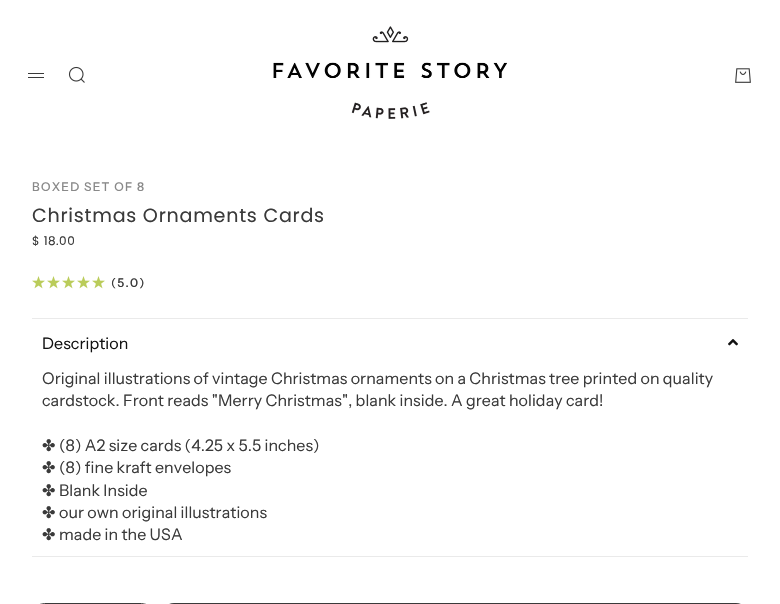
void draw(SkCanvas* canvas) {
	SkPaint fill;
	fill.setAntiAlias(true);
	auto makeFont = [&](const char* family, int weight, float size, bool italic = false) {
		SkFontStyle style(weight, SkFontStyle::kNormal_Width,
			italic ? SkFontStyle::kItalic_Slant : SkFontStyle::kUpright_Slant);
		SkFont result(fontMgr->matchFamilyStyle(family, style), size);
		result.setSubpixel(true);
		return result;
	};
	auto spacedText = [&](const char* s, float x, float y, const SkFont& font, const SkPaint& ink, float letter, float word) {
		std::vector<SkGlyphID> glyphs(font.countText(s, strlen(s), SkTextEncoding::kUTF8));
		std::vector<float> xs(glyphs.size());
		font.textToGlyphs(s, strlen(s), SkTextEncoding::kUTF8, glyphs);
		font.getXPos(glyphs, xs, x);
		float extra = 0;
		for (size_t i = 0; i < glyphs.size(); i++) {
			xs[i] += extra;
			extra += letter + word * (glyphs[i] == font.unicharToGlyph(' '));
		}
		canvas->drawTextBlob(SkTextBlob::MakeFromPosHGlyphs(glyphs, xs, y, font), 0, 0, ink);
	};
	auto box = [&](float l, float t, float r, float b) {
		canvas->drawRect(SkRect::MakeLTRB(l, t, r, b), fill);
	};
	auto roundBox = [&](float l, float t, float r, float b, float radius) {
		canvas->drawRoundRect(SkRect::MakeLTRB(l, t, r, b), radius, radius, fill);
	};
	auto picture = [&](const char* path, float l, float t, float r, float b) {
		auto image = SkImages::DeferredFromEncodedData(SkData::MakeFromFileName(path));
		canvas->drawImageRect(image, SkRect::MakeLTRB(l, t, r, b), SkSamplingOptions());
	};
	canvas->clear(0xFFFFFFFF);
	fill.setColor(0xFF3A3A3A);
	box(28, 73, 44, 74);
	box(28, 77, 44, 78);
	picture("image0.png", 68, 66, 85, 83);
	picture("image1.png", 273, 26, 507, 119);
	picture("image2.png", 735, 68, 751, 83);
	picture("image3.png", 32, 276, 45, 289);
	picture("image3.png", 47, 276, 60, 289);
	picture("image3.png", 62, 276, 75, 289);
	picture("image3.png", 77, 276, 90, 289);
	picture("image3.png", 92, 276, 105, 289);
	fill.setColor(0xFFEAEAEA);
	box(32, 318, 748, 319);
	picture("image4.png", 728, 339, 738, 346);
	box(32, 556, 748, 557);
	fill.setStyle(SkPaint::kStroke_Style);
	fill.setStrokeWidth(1);
	fill.setColor(0xFF3A3A3A);
	canvas->drawRoundRect(SkRect::MakeLTRB(32.5f, 603.5f, 153.5f, 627.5f), 22.5f, 22.5f, fill);
	fill.setStyle(SkPaint::kFill_Style);
	roundBox(162, 603, 748, 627, 23);
	auto font1 = makeFont("Instrument Sans", 500, 12);
	fill.setColor(0xFF898989);
	spacedText("BOXED SET OF 8", 32, 191, font1, fill, 1.25f, 0);
	auto font2 = makeFont("Poppins", 400, 19.1f);
	fill.setColor(0xFF3A3A3A);
	spacedText("Christmas Ornaments Cards", 32, 222, font2, fill, 0.75f, 0);
	auto font3 = makeFont("Poppins", 400, 12);
	spacedText("$ 18.00", 32, 245, font3, fill, 0.5f, 0);
	spacedText("(5.0)", 111, 287, font1, fill, 1.25f, 0);
	auto font4 = makeFont("Instrument Sans", 400, 16);
	fill.setColor(0xFF121212);
	spacedText("Description", 42, 349, font4, fill, 0.08f, 0);
	fill.setColor(0xFF3A3A3A);
	spacedText("Original illustrations of vintage Christmas ornaments on a Christmas tree printed on quality", 42, 384, font4, fill, 0.08f, 0);
	spacedText("cardstock. Front reads \"Merry Christmas\", blank inside. A great holiday card!", 42, 406, font4, fill, 0.08f, 0);
	auto font5 = makeFont("DejaVu Sans", 400, 16);
	spacedText("✤", 42, 451, font5, fill, 0.08f, 0);
	spacedText("(8) A2 size cards (4.25 x 5.5 inches)", 59, 451, font4, fill, 0.08f, 0);
	spacedText("✤", 42, 473, font5, fill, 0.08f, 0);
	spacedText("(8) fine kraft envelopes", 59, 473, font4, fill, 0.08f, 0);
	spacedText("✤", 42, 496, font5, fill, 0.08f, 0);
	spacedText("Blank Inside", 59, 496, font4, fill, 0.08f, 0);
	spacedText("✤", 42, 518, font5, fill, 0.08f, 0);
	spacedText("our own original illustrations", 59, 518, font4, fill, 0.08f, 0);
	spacedText("✤", 42, 540, font5, fill, 0.08f, 0);
	spacedText("made in the USA", 59, 540, font4, fill, 0.08f, 0);
}
